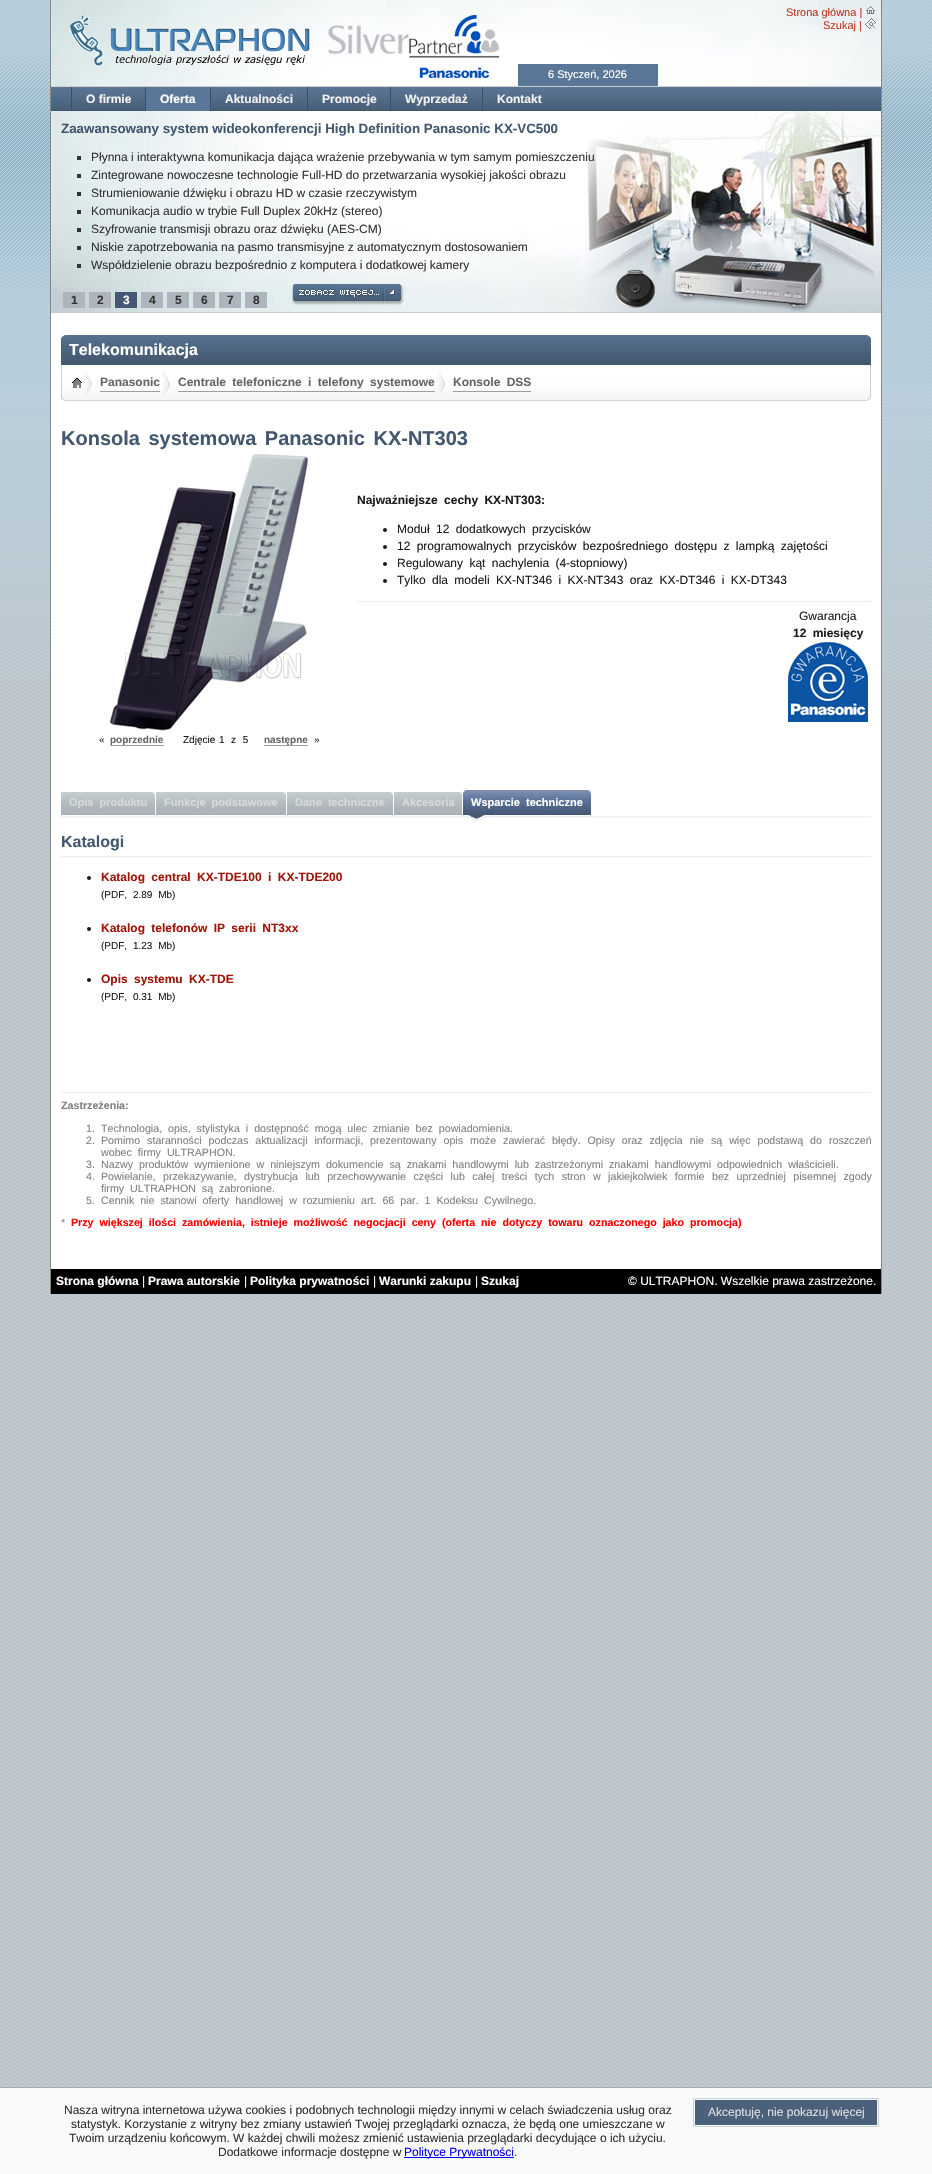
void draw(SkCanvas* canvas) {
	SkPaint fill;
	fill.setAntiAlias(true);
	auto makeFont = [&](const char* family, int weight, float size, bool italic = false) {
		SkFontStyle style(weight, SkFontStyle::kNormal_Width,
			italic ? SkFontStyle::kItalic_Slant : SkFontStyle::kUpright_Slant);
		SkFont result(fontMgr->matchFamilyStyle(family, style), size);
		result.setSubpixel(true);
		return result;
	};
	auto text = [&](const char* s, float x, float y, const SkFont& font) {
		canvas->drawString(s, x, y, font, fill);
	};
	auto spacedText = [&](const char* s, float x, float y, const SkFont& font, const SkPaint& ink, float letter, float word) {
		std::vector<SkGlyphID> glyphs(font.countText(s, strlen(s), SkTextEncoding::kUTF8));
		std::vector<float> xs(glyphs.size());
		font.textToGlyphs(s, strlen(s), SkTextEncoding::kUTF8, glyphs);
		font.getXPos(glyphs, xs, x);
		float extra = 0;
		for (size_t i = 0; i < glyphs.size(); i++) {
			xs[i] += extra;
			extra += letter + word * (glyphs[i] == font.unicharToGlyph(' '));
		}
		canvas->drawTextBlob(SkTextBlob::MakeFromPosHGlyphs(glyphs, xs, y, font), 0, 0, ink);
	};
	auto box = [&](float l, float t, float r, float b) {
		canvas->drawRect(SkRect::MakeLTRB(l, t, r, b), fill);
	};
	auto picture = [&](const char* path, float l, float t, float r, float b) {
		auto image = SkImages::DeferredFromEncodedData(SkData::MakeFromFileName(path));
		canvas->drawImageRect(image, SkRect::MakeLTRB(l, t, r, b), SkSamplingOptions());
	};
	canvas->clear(0xFFC0C0C0);
	picture("image0.png", 0, 0, 932, 674);
	picture("image1.png", 0, 0, 932, 2174);
	fill.setColor(0xFFFFFFFF);
	box(51, 313, 881, 1269);
	fill.setColor(0xFF898788);
	box(881, 0, 882, 1294);
	box(50, 0, 51, 1294);
	picture("image2.png", 51, 0, 881, 86);
	picture("image3.png", 70, 15, 310, 67);
	picture("image4.png", 328, 15, 500, 78);
	fill.setColor(0xFF5B7797);
	box(518, 64, 658, 86);
	picture("image5.png", 866, 6, 875, 14);
	picture("image6.png", 865, 18, 876, 29);
	fill.setColor(0xFF43576E);
	box(51, 110, 881, 111);
	picture("image7.png", 51, 87, 881, 110);
	fill.setColor(0xFFCDCCCC);
	box(51, 86, 881, 87);
	fill.setColor(0xFF364F6A);
	box(71, 87, 72, 111);
	box(145, 87, 146, 111);
	fill.setColor(0xFF5B7797);
	box(146, 88, 210, 111);
	fill.setColor(0xFF364F6A);
	box(210, 87, 211, 111);
	box(307, 87, 308, 111);
	box(390, 87, 391, 111);
	box(482, 87, 483, 111);
	picture("image8.png", 51, 111, 585, 312);
	fill.setColor(0xFFCACECF);
	box(51, 312, 881, 313);
	fill.setColor(0xFF333333);
	box(77, 156, 81, 160);
	box(77, 174, 81, 178);
	box(77, 192, 81, 196);
	box(77, 210, 81, 214);
	box(77, 228, 81, 232);
	box(77, 246, 81, 250);
	box(77, 264, 81, 268);
	picture("image9.png", 291, 283, 404, 305);
	picture("image10.png", 585, 111, 881, 312);
	fill.setColor(0xFFAEB5BC);
	box(63, 292, 85, 308);
	box(89, 292, 111, 308);
	fill.setColor(0xFF475875);
	box(115, 292, 137, 308);
	fill.setColor(0xFFAEB5BC);
	box(141, 292, 163, 308);
	box(167, 292, 189, 308);
	box(193, 292, 215, 308);
	box(219, 292, 241, 308);
	box(245, 292, 267, 308);
	picture("image11.png", 61, 335, 871, 365);
	picture("image12.png", 61, 335, 65, 339);
	picture("image13.png", 866, 335, 871, 339);
	picture("image14.png", 66, 365, 866, 401);
	picture("image15.png", 61, 365, 66, 401);
	picture("image16.png", 72, 378, 82, 388);
	picture("image17.png", 84, 369, 92, 395);
	fill.setColor(0xFF95A0AA);
	box(100, 391, 160, 392);
	picture("image17.png", 162, 369, 170, 395);
	box(178, 391, 435, 392);
	picture("image17.png", 437, 369, 445, 395);
	box(453, 391, 531, 392);
	picture("image18.png", 866, 365, 871, 401);
	fill.setColor(0xFF1C1C1C);
	canvas->drawCircle(385, 530, 2, fill);
	canvas->drawCircle(385, 547, 2, fill);
	canvas->drawCircle(385, 564, 2, fill);
	canvas->drawCircle(385, 581, 2, fill);
	fill.setColor(0xFFEEEEEE);
	box(357, 601, 871, 602);
	picture("image19.png", 788, 642, 868, 722);
	picture("image20.png", 110, 454, 308, 731);
	fill.setColor(0xFF95A0AA);
	box(110, 745, 164, 746);
	box(264, 745, 308, 746);
	picture("image21.png", 61, 816, 871, 818);
	picture("image22.png", 61, 792, 155, 815);
	fill.setColor(0xFFC9CDD2);
	box(61, 792, 64, 795);
	picture("image23.png", 156, 792, 286, 815);
	box(156, 792, 159, 795);
	picture("image24.png", 287, 792, 393, 815);
	box(287, 792, 290, 795);
	picture("image25.png", 394, 792, 462, 815);
	box(394, 792, 397, 795);
	picture("image26.png", 493, 789, 591, 817);
	picture("image27.png", 463, 789, 493, 822);
	fill.setColor(0xFFEEEEEE);
	box(61, 856, 871, 857);
	fill.setColor(0xFF1C1C1C);
	canvas->drawCircle(89, 878, 2, fill);
	canvas->drawCircle(89, 929, 2, fill);
	canvas->drawCircle(89, 980, 2, fill);
	fill.setColor(0xFFEEEEEE);
	box(61, 1092, 871, 1093);
	fill.setColor(0xFF000000);
	box(51, 1269, 881, 1294);
	fill.setColor(0xE6FFFFFF);
	box(0, 2088, 932, 2174);
	fill.setColor(0xFFAAAAAA);
	box(0, 2087, 932, 2088);
	fill.setColor(0xFF0000EE);
	box(404, 2157, 514, 2158);
	fill.setStyle(SkPaint::kStroke_Style);
	fill.setStrokeWidth(1);
	fill.setColor(0xFFCAD3D4);
	canvas->drawRect(SkRect::MakeLTRB(693.5f, 2098.5f, 878.5f, 2126.5f), fill);
	fill.setStyle(SkPaint::kFill_Style);
	fill.setColor(0xFF4B617B);
	box(695, 2100, 877, 2125);
	auto font1 = makeFont("Liberation Sans", 400, 11);
	fill.setColor(0xFFFFFFFF);
	text("6 Styczeń, 2026", 548, 78, font1);
	fill.setColor(0xFFC13626);
	text("Strona główna |", 786, 16, font1);
	text("Szukaj |", 823, 29, font1);
	auto font2 = makeFont("Liberation Sans", 700, 12);
	fill.setColor(0xFFF2F2F2);
	text("O firmie", 86, 103, font2);
	fill.setColor(0xFFFFFFFF);
	text("Oferta", 160, 103, font2);
	fill.setColor(0xFFF2F2F2);
	text("Aktualności", 225, 103, font2);
	text("Promocje", 322, 103, font2);
	text("Wyprzedaż", 405, 103, font2);
	text("Kontakt", 497, 103, font2);
	auto font3 = makeFont("Liberation Sans", 700, 13.35f);
	fill.setColor(0xFF43576E);
	text("Zaawansowany system wideokonferencji High Definition Panasonic KX-VC500", 61, 133, font3);
	auto font4 = makeFont("Liberation Sans", 400, 12);
	fill.setColor(0xFF333333);
	text("Płynna i interaktywna komunikacja dająca wrażenie przebywania w tym samym pomieszczeniu", 91, 161, font4);
	text("Zintegrowane nowoczesne technologie Full-HD do przetwarzania wysokiej jakości obrazu", 91, 179, font4);
	text("Strumieniowanie dźwięku i obrazu HD w czasie rzeczywistym", 91, 197, font4);
	text("Komunikacja audio w trybie Full Duplex 20kHz (stereo)", 91, 215, font4);
	text("Szyfrowanie transmisji obrazu oraz dźwięku (AES-CM)", 91, 233, font4);
	text("Niskie zapotrzebowania na pasmo transmisyjne z automatycznym dostosowaniem", 91, 251, font4);
	text("Współdzielenie obrazu bezpośrednio z komputera i dodatkowej kamery", 91, 269, font4);
	text("1", 71, 304, font2);
	text("2", 97, 304, font2);
	fill.setColor(0xFFFFFFFF);
	text("3", 123, 304, font2);
	fill.setColor(0xFF333333);
	text("4", 149, 304, font2);
	text("5", 175, 304, font2);
	text("6", 201, 304, font2);
	text("7", 227, 304, font2);
	text("8", 253, 304, font2);
	auto font5 = makeFont("Liberation Sans", 700, 16);
	fill.setColor(0xFFFFFFFF);
	text("Telekomunikacja", 69, 355, font5);
	fill.setColor(0xFF666666);
	text("Panasonic", 100, 386, font2);
	spacedText("Centrale telefoniczne i telefony systemowe", 178, 386, font2, fill, 0, 3);
	spacedText("Konsole DSS", 453, 386, font2, fill, 0, 3);
	auto font6 = makeFont("Liberation Sans", 700, 20);
	fill.setColor(0xFF43576E);
	spacedText("Konsola systemowa Panasonic KX-NT303", 61, 445, font6, fill, 0, 3);
	fill.setColor(0xFF1C1C1C);
	spacedText("Najważniejsze cechy KX-NT303:", 357, 504, font2, fill, 0, 3);
	spacedText("Moduł 12 dodatkowych przycisków", 397, 533, font4, fill, 0, 3);
	spacedText("12 programowalnych przycisków bezpośredniego dostępu z lampką zajętości", 397, 550, font4, fill, 0, 3);
	spacedText("Regulowany kąt nachylenia (4-stopniowy)", 397, 567, font4, fill, 0, 3);
	spacedText("Tylko dla modeli KX-NT346 i KX-NT343 oraz KX-DT346 i KX-DT343", 397, 584, font4, fill, 0, 3);
	text("Gwarancja", 799, 620, font4);
	spacedText("12 miesięcy", 793, 637, font2, fill, 0, 3);
	auto font7 = makeFont("Liberation Sans", 400, 10);
	text("«", 99, 743, font7);
	auto font8 = makeFont("Liberation Sans", 700, 10);
	fill.setColor(0xFF666666);
	text("poprzednie", 110, 743, font8);
	fill.setColor(0xFF1C1C1C);
	text("Zdjęcie", 183, 743, font7);
	text("1", 219, 743, font7);
	spacedText("z 5", 231, 743, font7, fill, 0, 4);
	fill.setColor(0xFF666666);
	text("następne", 264, 743, font8);
	fill.setColor(0xFF1C1C1C);
	text("»", 314, 743, font7);
	auto font9 = makeFont("Liberation Sans", 700, 11);
	fill.setColor(0xFFD9D9D9);
	spacedText("Opis produktu", 69, 806, font9, fill, 0, 3);
	spacedText("Funkcje podstawowe", 164, 806, font9, fill, 0, 3);
	spacedText("Dane techniczne", 295, 806, font9, fill, 0, 3);
	text("Akcesoria", 402, 806, font9);
	fill.setColor(0xFFFFFFFF);
	spacedText("Wsparcie techniczne", 471, 806, font9, fill, 0, 3);
	fill.setColor(0xFF43576E);
	text("Katalogi", 61, 847, font5);
	fill.setColor(0xFFA01409);
	spacedText("Katalog central KX-TDE100 i KX-TDE200", 101, 881, font2, fill, 0, 3);
	fill.setColor(0xFF1C1C1C);
	spacedText("(PDF, 2.89 Mb)", 101, 898, font7, fill, 0, 3);
	fill.setColor(0xFFA01409);
	spacedText("Katalog telefonów IP serii NT3xx", 101, 932, font2, fill, 0, 3);
	fill.setColor(0xFF1C1C1C);
	spacedText("(PDF, 1.23 Mb)", 101, 949, font7, fill, 0, 3);
	fill.setColor(0xFFA01409);
	spacedText("Opis systemu KX-TDE", 101, 983, font2, fill, 0, 3);
	fill.setColor(0xFF1C1C1C);
	spacedText("(PDF, 0.31 Mb)", 101, 1000, font7, fill, 0, 3);
	auto font10 = makeFont("Liberation Sans", 700, 10.67f);
	fill.setColor(0xFF808080);
	text("Zastrzeżenia:", 61, 1109, font10);
	auto font11 = makeFont("Liberation Sans", 400, 10.67f);
	text("1.", 86, 1132, font11);
	spacedText("Technologia, opis, stylistyka i dostępność mogą ulec zmianie bez powiadomienia.", 101, 1132, font11, fill, 0, 3);
	text("2.", 86, 1144, font11);
	spacedText("Pomimo staranności podczas aktualizacji informacji, prezentowany opis może zawierać błędy. Opisy oraz zdjęcia nie są więc podstawą do roszczeń", 101, 1144, font11, fill, 0, 4);
	spacedText("wobec firmy ULTRAPHON.", 101, 1156, font11, fill, 0, 3);
	text("3.", 86, 1168, font11);
	spacedText("Nazwy produktów wymienione w niniejszym dokumencie są znakami handlowymi lub zastrzeżonymi znakami handlowymi odpowiednich właścicieli.", 101, 1168, font11, fill, 0, 3);
	text("4.", 86, 1180, font11);
	spacedText("Powielanie, przekazywanie, dystrybucja lub przechowywanie części lub całej treści tych stron w jakiejkolwiek formie bez uprzedniej pisemnej zgody", 101, 1180, font11, fill, 0, 4.5f);
	spacedText("firmy ULTRAPHON są zabronione.", 101, 1192, font11, fill, 0, 3);
	text("5.", 86, 1204, font11);
	spacedText("Cennik nie stanowi oferty handlowej w rozumieniu art. 66 par. 1 Kodeksu Cywilnego.", 101, 1204, font11, fill, 0, 3);
	text("*", 61, 1226, font11);
	fill.setColor(0xFFFF0000);
	spacedText("Przy większej ilości zamówienia, istnieje możliwość negocjacji ceny (oferta nie dotyczy towaru oznaczonego jako promocja)", 71, 1226, font10, fill, 0, 3);
	fill.setColor(0xFFFFFFFF);
	text("Strona główna", 56, 1285, font2);
	text("|", 142, 1285, font4);
	text("Prawa autorskie", 148, 1285, font2);
	text("|", 244, 1285, font4);
	text("Polityka prywatności", 250, 1285, font2);
	text("|", 373, 1285, font4);
	text("Warunki zakupu", 379, 1285, font2);
	text("|", 475, 1285, font4);
	text("Szukaj", 481, 1285, font2);
	text("© ULTRAPHON. Wszelkie prawa zastrzeżone.", 628, 1285, font4);
	fill.setColor(0xFF333333);
	text("Nasza witryna internetowa używa cookies i podobnych technologii między innymi w celach świadczenia usług oraz", 64, 2114, font4);
	text("statystyk. Korzystanie z witryny bez zmiany ustawień Twojej przeglądarki oznacza, że będą one umieszczane w", 71, 2128, font4);
	text("Twoim urządzeniu końcowym. W każdej chwili możesz zmienić ustawienia przeglądarki decydujące o ich użyciu.", 69, 2142, font4);
	text("Dodatkowe informacje dostępne w", 218, 2156, font4);
	fill.setColor(0xFF0000EE);
	text("Polityce Prywatności", 404, 2156, font4);
	fill.setColor(0xFF333333);
	text(".", 514, 2156, font4);
	fill.setColor(0xFFDFDFDF);
	text("Akceptuję, nie pokazuj więcej", 708, 2116, font4);
}
